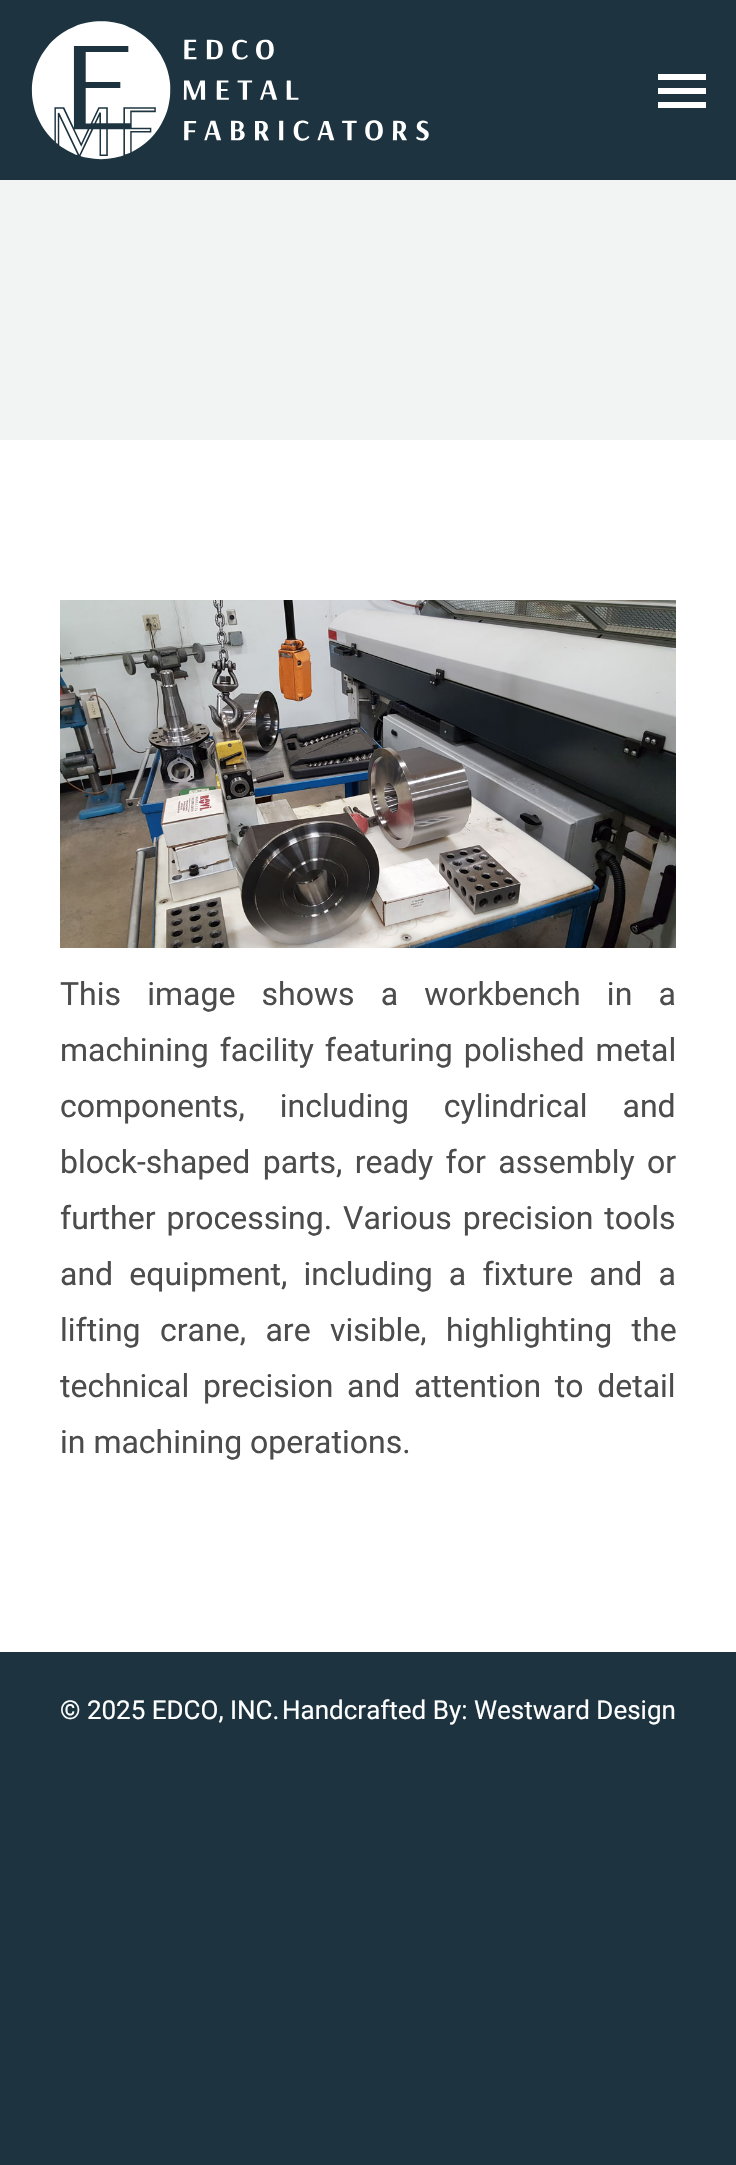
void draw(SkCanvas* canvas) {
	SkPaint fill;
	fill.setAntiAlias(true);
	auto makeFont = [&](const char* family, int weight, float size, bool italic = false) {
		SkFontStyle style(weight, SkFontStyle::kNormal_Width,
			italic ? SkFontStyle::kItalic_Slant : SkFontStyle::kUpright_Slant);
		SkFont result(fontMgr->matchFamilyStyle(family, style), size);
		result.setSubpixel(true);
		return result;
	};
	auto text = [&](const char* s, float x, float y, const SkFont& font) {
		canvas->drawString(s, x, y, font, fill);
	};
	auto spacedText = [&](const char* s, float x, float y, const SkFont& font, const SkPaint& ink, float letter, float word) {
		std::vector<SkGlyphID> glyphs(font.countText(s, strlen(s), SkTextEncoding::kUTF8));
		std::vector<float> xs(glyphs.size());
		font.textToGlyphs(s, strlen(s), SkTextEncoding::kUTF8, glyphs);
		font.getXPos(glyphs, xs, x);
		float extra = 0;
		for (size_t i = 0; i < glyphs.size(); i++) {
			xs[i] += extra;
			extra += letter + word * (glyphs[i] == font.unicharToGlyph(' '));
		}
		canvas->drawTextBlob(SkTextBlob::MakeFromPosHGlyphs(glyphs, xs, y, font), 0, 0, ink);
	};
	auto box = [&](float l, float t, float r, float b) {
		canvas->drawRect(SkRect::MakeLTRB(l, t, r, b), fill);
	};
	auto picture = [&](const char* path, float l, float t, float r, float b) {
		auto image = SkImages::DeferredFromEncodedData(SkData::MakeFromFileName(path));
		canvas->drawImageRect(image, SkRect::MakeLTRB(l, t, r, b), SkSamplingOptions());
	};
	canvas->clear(0xFF1D3440);
	fill.setColor(0xFFFFFFFF);
	box(0, 440, 736, 1652);
	picture("image0.png", 31, 21, 429, 160);
	box(658, 74, 706, 80);
	box(658, 88, 706, 94);
	box(658, 102, 706, 108);
	fill.setColor(0xFFF2F3F3);
	box(0, 180, 736, 440);
	picture("image1.png", 60, 600, 676, 948);
	auto font1 = makeFont("Roboto", 400, 32);
	fill.setColor(0xFF4C4C4C);
	spacedText("This image shows a workbench in a", 60, 1005, font1, fill, 0, 18.25f);
	spacedText("machining facility featuring polished metal", 60, 1061, font1, fill, 0, 3);
	spacedText("components, including cylindrical and", 60, 1117, font1, fill, 0, 27);
	spacedText("block-shaped parts, ready for assembly or", 60, 1173, font1, fill, 0, 4.5f);
	spacedText("further processing. Various precision tools", 60, 1229, font1, fill, 0, 3);
	spacedText("and equipment, including a fixture and a", 60, 1285, font1, fill, 0, 8.25f);
	spacedText("lifting crane, are visible, highlighting the", 60, 1341, font1, fill, 0, 11.5f);
	spacedText("technical precision and attention to detail", 60, 1397, font1, fill, 0, 5.75f);
	text("in machining operations.", 60, 1453, font1);
	auto font2 = makeFont("Roboto", 400, 26);
	fill.setColor(0xFFFFFFFF);
	text("© 2025 EDCO, INC.", 60, 1719, font2);
	text("Handcrafted By: Westward Design", 282, 1719, font2);
}
